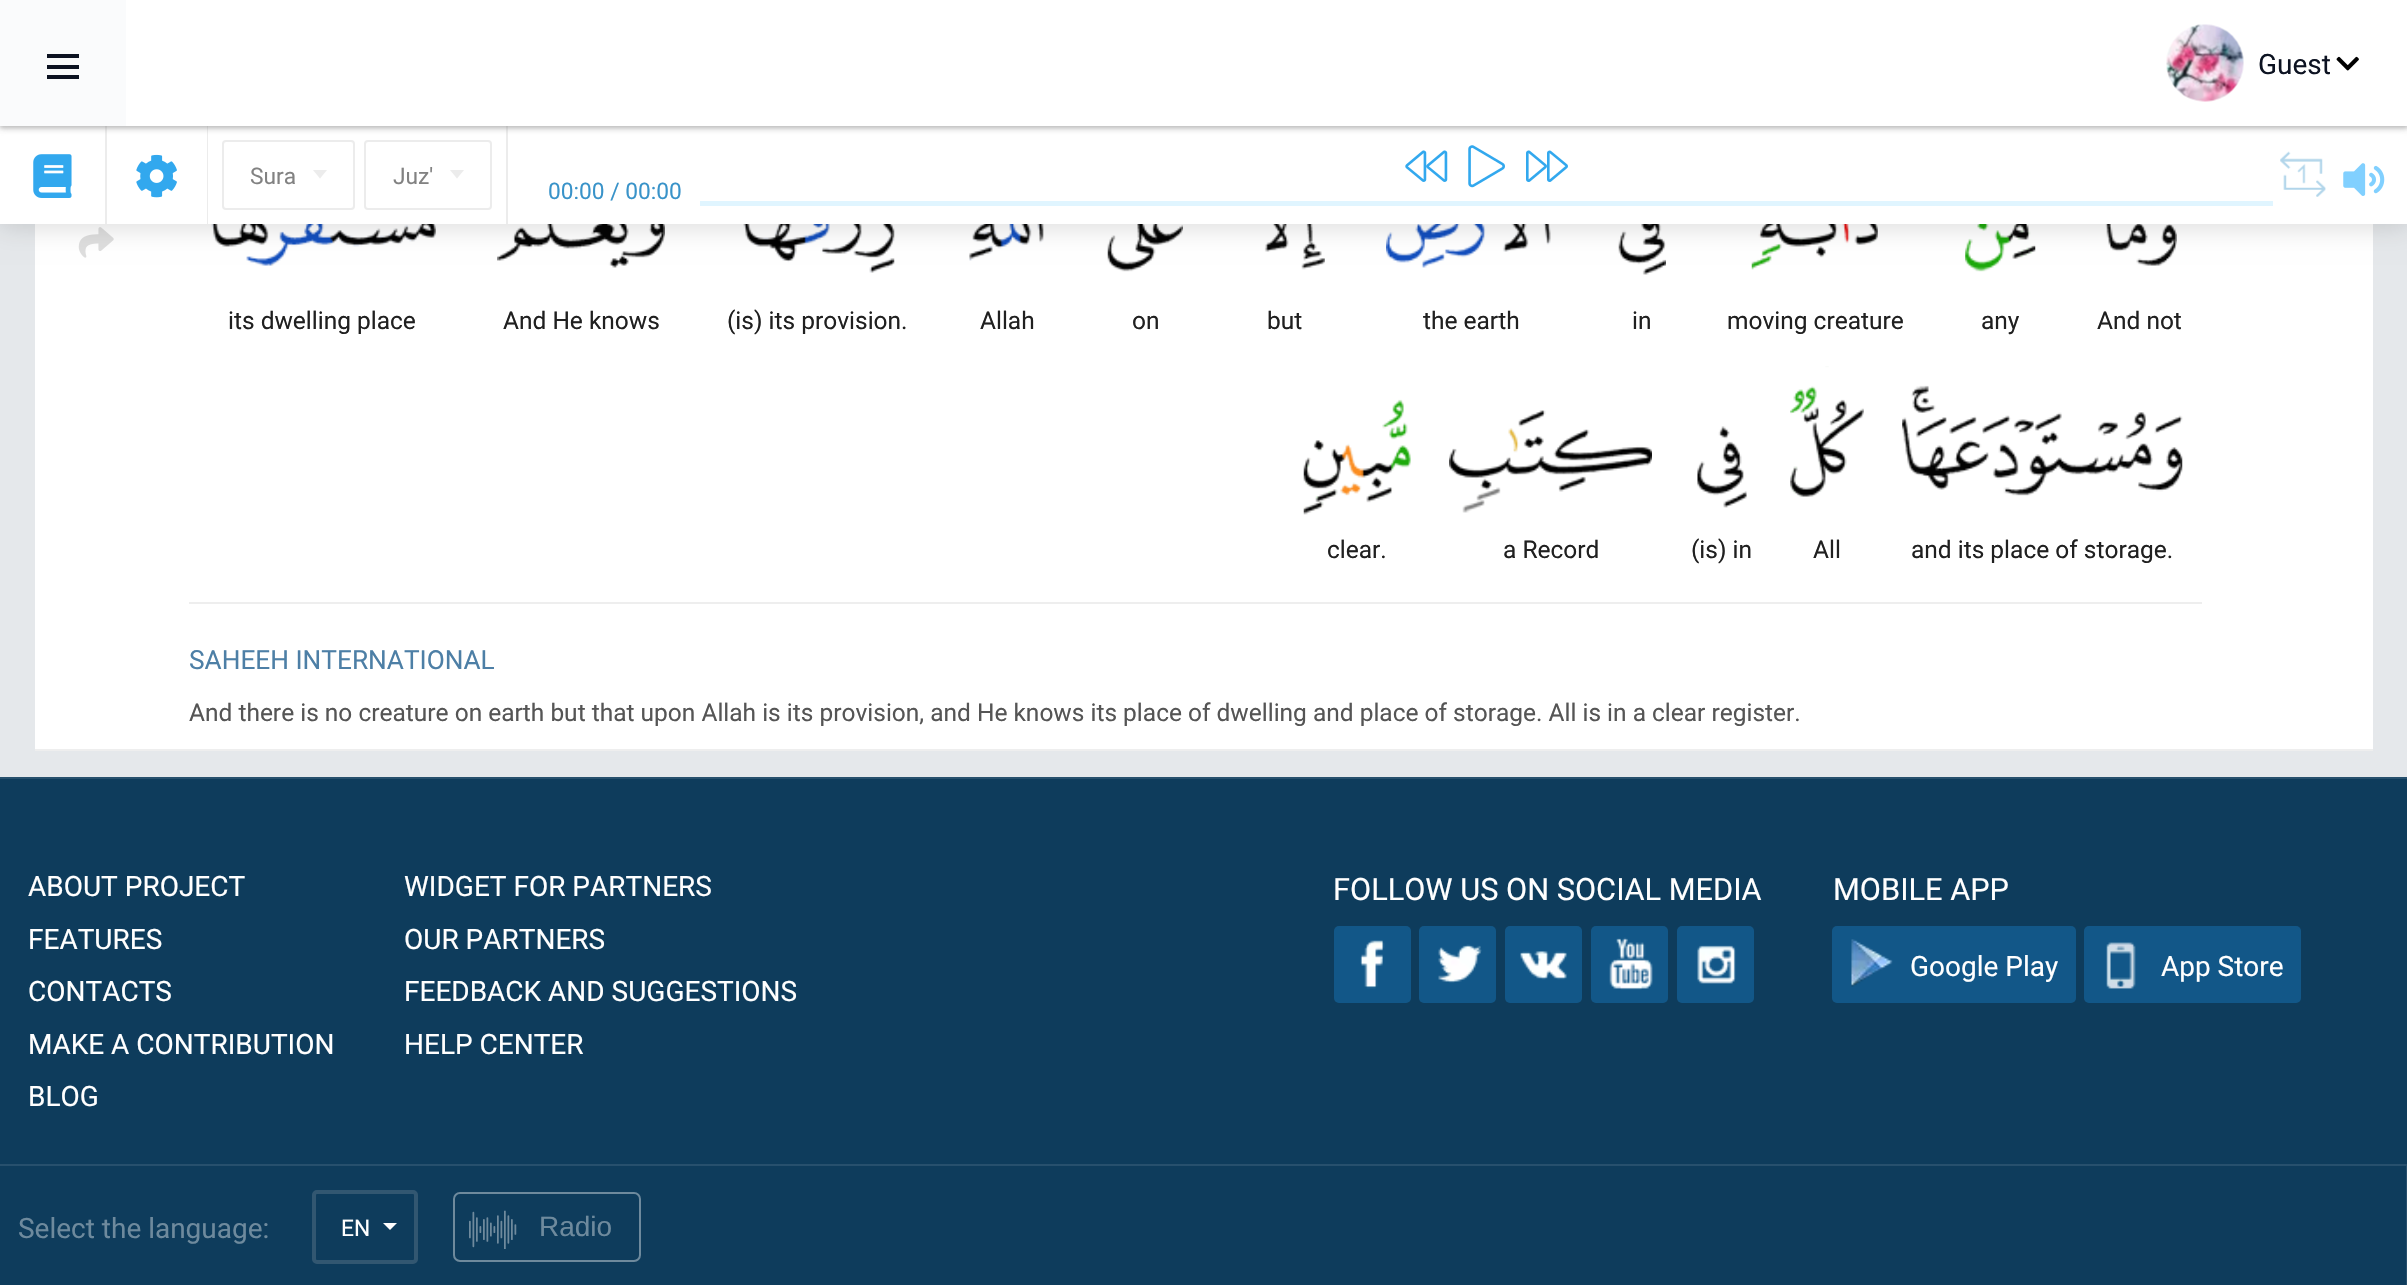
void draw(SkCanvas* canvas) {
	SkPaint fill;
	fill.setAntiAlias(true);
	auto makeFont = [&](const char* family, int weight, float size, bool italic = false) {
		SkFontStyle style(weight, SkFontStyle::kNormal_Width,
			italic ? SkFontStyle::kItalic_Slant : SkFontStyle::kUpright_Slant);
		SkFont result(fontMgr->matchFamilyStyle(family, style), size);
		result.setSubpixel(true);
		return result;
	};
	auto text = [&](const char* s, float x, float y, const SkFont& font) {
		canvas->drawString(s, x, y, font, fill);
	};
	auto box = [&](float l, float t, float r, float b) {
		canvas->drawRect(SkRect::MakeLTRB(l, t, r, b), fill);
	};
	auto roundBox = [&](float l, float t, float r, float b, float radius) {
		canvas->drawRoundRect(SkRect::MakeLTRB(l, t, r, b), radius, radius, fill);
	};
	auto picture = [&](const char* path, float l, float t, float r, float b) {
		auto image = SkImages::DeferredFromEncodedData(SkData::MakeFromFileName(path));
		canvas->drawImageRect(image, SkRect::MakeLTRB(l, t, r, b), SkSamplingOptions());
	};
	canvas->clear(0xFFE5E8EB);
	fill.setColor(0xFFFFFFFF);
	box(35, 224, 2373, 749);
	picture("image9.png", 78, 227, 114, 258);
	picture("image10.png", 211, 224, 436, 266);
	picture("image11.png", 497, 224, 665, 268);
	picture("image12.png", 743, 224, 895, 273);
	picture("image13.png", 969, 224, 1044, 261);
	picture("image14.png", 1107, 224, 1183, 272);
	picture("image15.png", 1264, 224, 1325, 270);
	picture("image16.png", 1386, 224, 1551, 268);
	picture("image17.png", 1618, 224, 1666, 275);
	picture("image18.png", 1751, 224, 1878, 270);
	picture("image19.png", 1965, 224, 2036, 272);
	picture("image20.png", 2104, 224, 2177, 266);
	fill.setColor(0x26000000);
	fill.setMaskFilter(SkMaskFilter::MakeBlur(kNormal_SkBlurStyle, 13));
	canvas->drawRect(SkRect::MakeLTRB(-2, 124, 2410, 226), fill);
	fill.setMaskFilter(nullptr);
	fill.setColor(0xFFFFFFFF);
	box(0, 126, 2407, 224);
	fill.setColor(0xFFECECEC);
	box(207, 126, 208, 224);
	box(105, 126, 107, 224);
	box(506, 126, 508, 224);
	fill.setColor(0x33000000);
	fill.setMaskFilter(SkMaskFilter::MakeBlur(kNormal_SkBlurStyle, 2));
	canvas->drawRect(SkRect::MakeLTRB(0, 2, 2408, 128), fill);
	fill.setMaskFilter(nullptr);
	fill.setColor(0x80AAAAAA);
	fill.setMaskFilter(SkMaskFilter::MakeBlur(kNormal_SkBlurStyle, 3.5f));
	canvas->drawRect(SkRect::MakeLTRB(0, 2, 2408, 128), fill);
	fill.setMaskFilter(nullptr);
	fill.setColor(0xFFFFFFFF);
	box(126, 0, 2407, 126);
	fill.setColor(0xFFFAFBFC);
	box(0, 0, 126, 126);
	fill.setColor(0xFF0D1322);
	box(47, 54, 79, 58);
	box(47, 65, 79, 69);
	box(47, 75, 79, 79);
	picture("image0.png", 2166, 24, 2244, 102);
	picture("image1.png", 2336, 56, 2359, 71);
	picture("image2.png", 33, 154, 72, 198);
	picture("image3.png", 136, 154, 177, 198);
	fill.setStyle(SkPaint::kStroke_Style);
	fill.setStrokeWidth(2);
	fill.setColor(0xFFECECEC);
	canvas->drawRoundRect(SkRect::MakeLTRB(223, 141, 354, 209), 3, 3, fill);
	fill.setStyle(SkPaint::kFill_Style);
	canvas->drawPath(SkPathBuilder().moveTo(313, 170).lineTo(327, 170).lineTo(320, 178.5f).close().detach(), fill);
	fill.setStyle(SkPaint::kStroke_Style);
	canvas->drawRoundRect(SkRect::MakeLTRB(365, 141, 491, 209), 3, 3, fill);
	fill.setStyle(SkPaint::kFill_Style);
	canvas->drawPath(SkPathBuilder().moveTo(450, 170).lineTo(464, 170).lineTo(457, 178.5f).close().detach(), fill);
	picture("image4.png", 1405, 150, 1448, 182);
	picture("image5.png", 1468, 145, 1505, 188);
	picture("image6.png", 1526, 150, 1568, 182);
	fill.setColor(0xFFE0F5FF);
	box(700, 201, 2273, 206);
	picture("image7.png", 2280, 151, 2326, 197);
	picture("image8.png", 2343, 163, 2385, 196);
	fill.setColor(0xFFEEEEEE);
	box(35, 749, 2373, 751);
	picture("image21.png", 1303, 399, 1411, 515);
	picture("image22.png", 1449, 410, 1652, 513);
	picture("image23.png", 1697, 426, 1747, 508);
	picture("image24.png", 1790, 366, 1864, 497);
	picture("image25.png", 1902, 385, 2183, 496);
	box(189, 602, 2202, 604);
	fill.setColor(0xFF0E3C5C);
	box(0, 779, 2407, 1164);
	fill.setColor(0xFF27506D);
	box(0, 777, 2407, 779);
	fill.setColor(0xFF125788);
	roundBox(1334, 926, 1411, 1003, 5);
	picture("image26.png", 1360, 940, 1385, 989);
	roundBox(1419, 926, 1496, 1003, 5);
	picture("image27.png", 1438, 944, 1482, 983);
	roundBox(1505, 926, 1582, 1003, 5);
	picture("image28.png", 1520, 951, 1567, 980);
	roundBox(1591, 926, 1668, 1003, 5);
	picture("image29.png", 1609, 937, 1653, 990);
	roundBox(1677, 926, 1754, 1003, 5);
	picture("image30.png", 1697, 945, 1736, 984);
	roundBox(1832, 926, 2076, 1003, 5);
	picture("image31.png", 1851, 939, 1893, 987);
	roundBox(2084, 926, 2301, 1003, 5);
	picture("image32.png", 2106, 942, 2136, 989);
	fill.setColor(0xFF0E3C5C);
	box(0, 1166, 2406, 1285);
	fill.setColor(0xFF27506D);
	box(0, 1164, 2407, 1166);
	box(2406, 1166, 2407, 1285);
	fill.setStyle(SkPaint::kStroke_Style);
	fill.setStrokeWidth(4);
	fill.setColor(0xFF325771);
	canvas->drawRoundRect(SkRect::MakeLTRB(314, 1192, 416, 1262), 3, 3, fill);
	fill.setStyle(SkPaint::kFill_Style);
	fill.setColor(0xFFFFFFFF);
	canvas->drawPath(SkPathBuilder().moveTo(383, 1223).lineTo(397, 1223).lineTo(390, 1230).close().detach(), fill);
	fill.setStyle(SkPaint::kStroke_Style);
	fill.setStrokeWidth(2);
	fill.setColor(0xFF6E8A9D);
	canvas->drawRoundRect(SkRect::MakeLTRB(454, 1193, 640, 1261), 6, 6, fill);
	picture("image33.png", 469, 1210, 517, 1249);
	auto font1 = makeFont("Roboto", 400, 28);
	fill.setStyle(SkPaint::kFill_Style);
	fill.setColor(0xFF0D1322);
	text("Guest", 2258, 74, font1);
	auto font2 = makeFont("Roboto", 400, 22.75f);
	fill.setColor(0xFF828282);
	text("Sura", 250, 184, font2);
	text("Juz'", 393, 184, font2);
	fill.setColor(0xFF3993C9);
	text("00:00 / 00:00", 548, 199, font2);
	auto font3 = makeFont("Roboto", 400, 24.5f);
	fill.setColor(0xFF202020);
	text("its dwelling place", 228, 329, font3);
	text("And He knows", 503, 329, font3);
	text("(is) its provision.", 727, 329, font3);
	text("Allah", 980, 329, font3);
	text("on", 1132, 329, font3);
	text("but", 1267, 329, font3);
	text("the earth", 1423, 329, font3);
	text("in", 1632, 329, font3);
	text("moving creature", 1727, 329, font3);
	text("any", 1981, 329, font3);
	text("And not", 2097, 329, font3);
	text("clear.", 1327, 558, font3);
	text("a Record", 1503, 558, font3);
	text("(is) in", 1691, 558, font3);
	text("All", 1813, 558, font3);
	text("and its place of storage.", 1911, 558, font3);
	auto font4 = makeFont("Roboto", 400, 26.25f);
	fill.setColor(0xFF4D7FA6);
	text("SAHEEH INTERNATIONAL", 189, 669, font4);
	fill.setColor(0xFF555555);
	text("And there is no creature on earth but that upon Allah is its provision, and He knows its place of dwelling and place of storage. All is in a clear register.", 189, 721, font3);
	fill.setColor(0xFFFFFFFF);
	text("ABOUT PROJECT", 28, 896, font1);
	text("FEATURES", 28, 949, font1);
	text("CONTACTS", 28, 1001, font1);
	text("MAKE A CONTRIBUTION", 28, 1054, font1);
	text("BLOG", 28, 1106, font1);
	text("WIDGET FOR PARTNERS", 404, 896, font1);
	text("OUR PARTNERS", 404, 949, font1);
	text("FEEDBACK AND SUGGESTIONS", 404, 1001, font1);
	text("HELP CENTER", 404, 1054, font1);
	auto font5 = makeFont("Roboto", 400, 30.75f);
	text("FOLLOW US ON SOCIAL MEDIA", 1333, 900, font5);
	text("MOBILE APP", 1833, 900, font5);
	text("Google Play", 1910, 976, font1);
	text("App Store", 2161, 976, font1);
	fill.setColor(0xFF6E8A9D);
	text("Select the language:", 18, 1238, font1);
	fill.setColor(0xFFFFFFFF);
	text("EN", 341, 1236, font2);
	auto font6 = makeFont("Liberation Sans", 400, 28);
	fill.setColor(0xFF6E8A9D);
	text("Radio", 539, 1236, font6);
}
